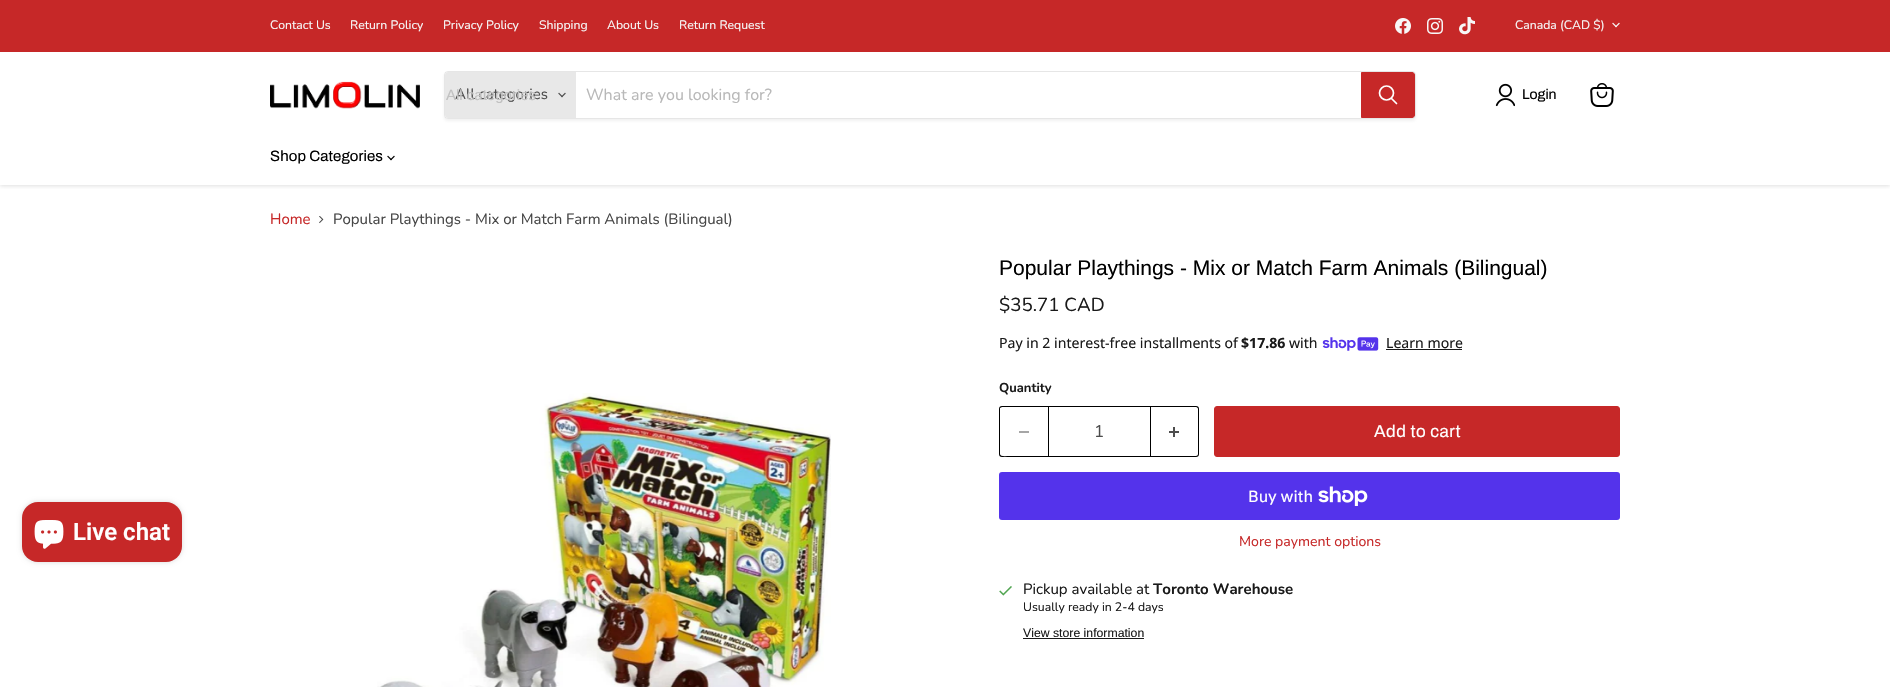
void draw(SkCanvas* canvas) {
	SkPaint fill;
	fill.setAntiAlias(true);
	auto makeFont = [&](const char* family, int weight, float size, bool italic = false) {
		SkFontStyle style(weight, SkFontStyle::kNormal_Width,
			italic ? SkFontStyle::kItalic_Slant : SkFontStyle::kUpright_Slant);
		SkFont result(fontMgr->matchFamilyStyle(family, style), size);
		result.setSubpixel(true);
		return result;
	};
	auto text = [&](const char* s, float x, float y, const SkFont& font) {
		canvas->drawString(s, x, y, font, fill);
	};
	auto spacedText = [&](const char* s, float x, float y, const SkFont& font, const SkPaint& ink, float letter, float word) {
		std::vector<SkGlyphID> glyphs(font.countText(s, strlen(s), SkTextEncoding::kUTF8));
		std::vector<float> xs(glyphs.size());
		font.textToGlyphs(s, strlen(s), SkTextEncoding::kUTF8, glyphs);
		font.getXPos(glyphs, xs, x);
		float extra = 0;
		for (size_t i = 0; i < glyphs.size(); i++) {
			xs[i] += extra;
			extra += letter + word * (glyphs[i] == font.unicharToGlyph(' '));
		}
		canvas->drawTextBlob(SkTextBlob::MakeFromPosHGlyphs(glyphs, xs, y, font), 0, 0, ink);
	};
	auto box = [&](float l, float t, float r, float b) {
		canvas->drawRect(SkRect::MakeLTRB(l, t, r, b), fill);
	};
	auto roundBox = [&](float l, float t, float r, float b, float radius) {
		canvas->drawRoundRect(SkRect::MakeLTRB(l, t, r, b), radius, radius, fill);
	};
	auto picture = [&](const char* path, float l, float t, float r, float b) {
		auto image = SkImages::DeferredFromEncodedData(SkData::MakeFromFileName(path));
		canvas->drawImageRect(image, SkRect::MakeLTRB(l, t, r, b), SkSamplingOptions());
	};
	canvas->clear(0xFFFFFFFF);
	canvas->save();
	canvas->clipRect(SkRect::MakeLTRB(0, 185, 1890, 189));
	fill.setColor(0x40808080);
	fill.setMaskFilter(SkMaskFilter::MakeBlur(kNormal_SkBlurStyle, 2));
	canvas->drawRect(SkRect::MakeLTRB(0, 53, 1890, 186), fill);
	fill.setMaskFilter(nullptr);
	canvas->restore();
	fill.setColor(0xFFC62828);
	box(0, 0, 1890, 52);
	picture("image0.png", 1395, 18, 1411, 34);
	picture("image1.png", 1427, 18, 1443, 34);
	picture("image2.png", 1459, 17, 1475, 35);
	picture("image3.png", 1612, 22, 1620, 28);
	picture("image4.png", 270, 81, 420, 109);
	canvas->save();
	canvas->clipPath(SkPathBuilder(SkPathFillType::kEvenOdd).moveTo(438, 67).lineTo(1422, 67).lineTo(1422, 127).lineTo(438, 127).close().moveTo(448, 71).lineTo(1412, 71).cubicTo(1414, 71, 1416, 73, 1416, 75).lineTo(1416, 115).cubicTo(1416, 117, 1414, 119, 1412, 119).lineTo(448, 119).cubicTo(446, 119, 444, 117, 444, 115).lineTo(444, 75).cubicTo(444, 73, 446, 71, 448, 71).close().detach(), true);
	fill.setColor(0x1C808080);
	fill.setMaskFilter(SkMaskFilter::MakeBlur(kNormal_SkBlurStyle, 1.5f));
	canvas->drawRoundRect(SkRect::MakeLTRB(444, 73, 1416, 121), 4, 4, fill);
	fill.setMaskFilter(nullptr);
	canvas->restore();
	fill.setStyle(SkPaint::kStroke_Style);
	fill.setStrokeWidth(1);
	fill.setColor(0x33808080);
	canvas->drawRoundRect(SkRect::MakeLTRB(444.5f, 71.5f, 1415.5f, 118.5f), 3.5f, 3.5f, fill);
	fill.setStyle(SkPaint::kFill_Style);
	fill.setColor(0xFFE8E8E8);
	canvas->drawPath(SkPathBuilder().moveTo(448, 72).lineTo(576, 72).lineTo(576, 118).lineTo(448, 118).cubicTo(446.5f, 118, 445, 116.5f, 445, 115).lineTo(445, 75).cubicTo(445, 73.5f, 446.5f, 72, 448, 72).close().detach(), fill);
	picture("image5.png", 558, 92, 566, 98);
	fill.setColor(0xFFC62828);
	canvas->drawPath(SkPathBuilder().moveTo(1361.5f, 72.5f).lineTo(1412, 72.5f).cubicTo(1413.5f, 72.5f, 1414.5f, 73.5f, 1414.5f, 75).lineTo(1414.5f, 115).cubicTo(1414.5f, 116.5f, 1413.5f, 117.5f, 1412, 117.5f).lineTo(1361.5f, 117.5f).close().detach(), fill);
	fill.setStyle(SkPaint::kStroke_Style);
	canvas->drawPath(SkPathBuilder().moveTo(1361.5f, 72.5f).lineTo(1412, 72.5f).cubicTo(1413.5f, 72.5f, 1414.5f, 73.5f, 1414.5f, 75).lineTo(1414.5f, 115).cubicTo(1414.5f, 116.5f, 1413.5f, 117.5f, 1412, 117.5f).lineTo(1361.5f, 117.5f).close().detach(), fill);
	fill.setStrokeWidth(1.7f);
	fill.setStrokeCap(SkPaint::kRound_Cap);
	fill.setColor(0xFFFFFFFF);
	canvas->drawPath(SkPathBuilder().moveTo(1396.5f, 103.5f).lineTo(1391.5f, 98.5f).detach(), fill);
	fill.setStrokeCap(SkPaint::kButt_Cap);
	canvas->drawCircle(1386.5f, 93, 7, fill);
	picture("image6.png", 1495, 83, 1515, 107);
	picture("image7.png", 1590, 83, 1614, 107);
	picture("image8.png", 387, 155, 395, 161);
	fill.setStyle(SkPaint::kFill_Style);
	fill.setColor(0x26000000);
	fill.setMaskFilter(SkMaskFilter::MakeBlur(kNormal_SkBlurStyle, 2.5f));
	canvas->drawRoundRect(SkRect::MakeLTRB(22, 502, 182, 562), 16, 16, fill);
	fill.setMaskFilter(nullptr);
	fill.setColor(0xFFC62828);
	roundBox(22, 502, 182, 562, 16);
	picture("image9.png", 34, 520, 64, 549);
	picture("image10.png", 319, 216, 324, 224);
	picture("image11.png", 377, 393, 831, 687);
	picture("image12.png", 1322, 337, 1379, 351);
	fill.setColor(0xFF1A1A1A);
	box(1386, 349, 1462, 350);
	fill.setColor(0xFF000000);
	canvas->drawPath(SkPathBuilder(SkPathFillType::kEvenOdd).moveTo(1002, 406).lineTo(1048, 406).lineTo(1048, 457).lineTo(1002, 457).cubicTo(1000, 457, 999, 456, 999, 454).lineTo(999, 409).cubicTo(999, 407, 1000, 406, 1002, 406).close().moveTo(1002, 407).lineTo(1048, 407).lineTo(1048, 456).lineTo(1010, 456).cubicTo(1006, 456, 1000, 457, 1000, 454).lineTo(1000, 408).close().detach(), fill);
	fill.setColor(0xFFA6A6A6);
	box(1019, 431, 1029, 433);
	fill.setStyle(SkPaint::kStroke_Style);
	fill.setStrokeWidth(1);
	fill.setColor(0xFF000000);
	canvas->drawRect(SkRect::MakeLTRB(1048.5f, 406.5f, 1150.5f, 456.5f), fill);
	fill.setStyle(SkPaint::kFill_Style);
	canvas->drawPath(SkPathBuilder(SkPathFillType::kEvenOdd).moveTo(1151, 406).lineTo(1196, 406).cubicTo(1198, 406, 1199, 407, 1199, 409).lineTo(1199, 454).cubicTo(1199, 456, 1198, 457, 1196, 457).lineTo(1151, 457).close().moveTo(1151, 407).lineTo(1196, 407).cubicTo(1197, 407, 1198, 408, 1198, 409).lineTo(1198, 454).cubicTo(1198, 455, 1197, 456, 1196, 456).lineTo(1151, 456).close().detach(), fill);
	picture("image13.png", 1169, 427, 1179, 437);
	fill.setColor(0xFFC62828);
	canvas->drawRoundRect(SkRect::MakeLTRB(1214.5f, 406.5f, 1619.5f, 456.5f), 2.5f, 2.5f, fill);
	fill.setStyle(SkPaint::kStroke_Style);
	canvas->drawRoundRect(SkRect::MakeLTRB(1214.5f, 406.5f, 1619.5f, 456.5f), 2.5f, 2.5f, fill);
	fill.setStyle(SkPaint::kFill_Style);
	fill.setColor(0xFF5433EB);
	roundBox(999, 472, 1620, 520, 3);
	picture("image14.png", 1318, 486, 1368, 506);
	picture("image15.png", 999, 586, 1012, 596);
	fill.setColor(0xFF1A1A1A);
	box(1023, 638, 1144, 639);
	auto font1 = makeFont("Nunito", 400, 12.25f);
	fill.setColor(0xFFF7F7F7);
	text("Contact Us", 270, 29, font1);
	text("Return Policy", 350, 29, font1);
	text("Privacy Policy", 443, 29, font1);
	text("Shipping", 539, 29, font1);
	text("About Us", 607, 29, font1);
	text("Return Request", 679, 29, font1);
	text("Canada (CAD $)", 1515, 29, font1);
	auto font2 = makeFont("Nunito", 400, 15);
	fill.setColor(0xFF4D4D4D);
	text("All categories", 455, 99, font2);
	auto font3 = makeFont("Liberation Sans", 400, 15);
	fill.setColor(0xFFC1C1C1);
	text("All categories", 446, 100, font3);
	auto font4 = makeFont("Nunito", 400, 16);
	fill.setColor(0xFFB8B8B8);
	text("What are you looking for?", 586, 100, font4);
	auto font5 = makeFont("Archivo", 400, 14.1f);
	fill.setColor(0xFF000000);
	text("Login", 1522, 99, font5);
	auto font6 = makeFont("Archivo", 400, 15);
	spacedText("Shop Categories", 270, 161, font6, fill, 0.1f, 0);
	auto font7 = makeFont("Roboto", 600, 24);
	fill.setColor(0xFFFFFFFF);
	text("Live chat", 73, 540, font7);
	fill.setColor(0xFFC62828);
	text("Home", 270, 224, font2);
	fill.setColor(0xFF464646);
	text("Popular Playthings - Mix or Match Farm Animals (Bilingual)", 333, 224, font2);
	auto font8 = makeFont("Arimo", 400, 21);
	fill.setColor(0xFF000000);
	text("Popular Playthings - Mix or Match Farm Animals (Bilingual)", 999, 275, font8);
	auto font9 = makeFont("Nunito", 400, 18.75f);
	fill.setColor(0xFF1A1A1A);
	text("$35.71 CAD", 999, 311, font9);
	auto font10 = makeFont("Noto Sans", 400, 14.1f);
	text("Pay in 2 interest-free installments of", 999, 348, font10);
	auto font11 = makeFont("Noto Sans", 700, 14.1f);
	text("$17.86", 1241, 348, font11);
	text("with", 1289, 348, font10);
	text("Learn more", 1386, 348, font10);
	auto font12 = makeFont("Nunito", 700, 13);
	text("Quantity", 999, 392, font12);
	auto font13 = makeFont("Nunito", 400, 17);
	fill.setColor(0xFF4D4D4D);
	text("1", 1094, 437, font13);
	auto font14 = makeFont("Archivo", 400, 17);
	fill.setColor(0xFFFFFFFF);
	spacedText("Add to cart", 1374, 437, font14, fill, 0.5f, 0);
	auto font15 = makeFont("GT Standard", 400, 16);
	text("Buy with", 1248, 502, font15);
	auto font16 = makeFont("Nunito", 400, 14.1f);
	fill.setColor(0xFFC62828);
	text("More payment options", 1239, 546, font16);
	fill.setColor(0xFF1A1A1A);
	text("Pickup available at", 1023, 594, font2);
	auto font17 = makeFont("Nunito", 700, 15);
	text("Toronto Warehouse", 1153, 594, font17);
	text("Usually ready in 2-4 days", 1023, 611, font1);
	auto font18 = makeFont("Liberation Sans", 400, 12.25f);
	text("View store information", 1023, 637, font18);
}
